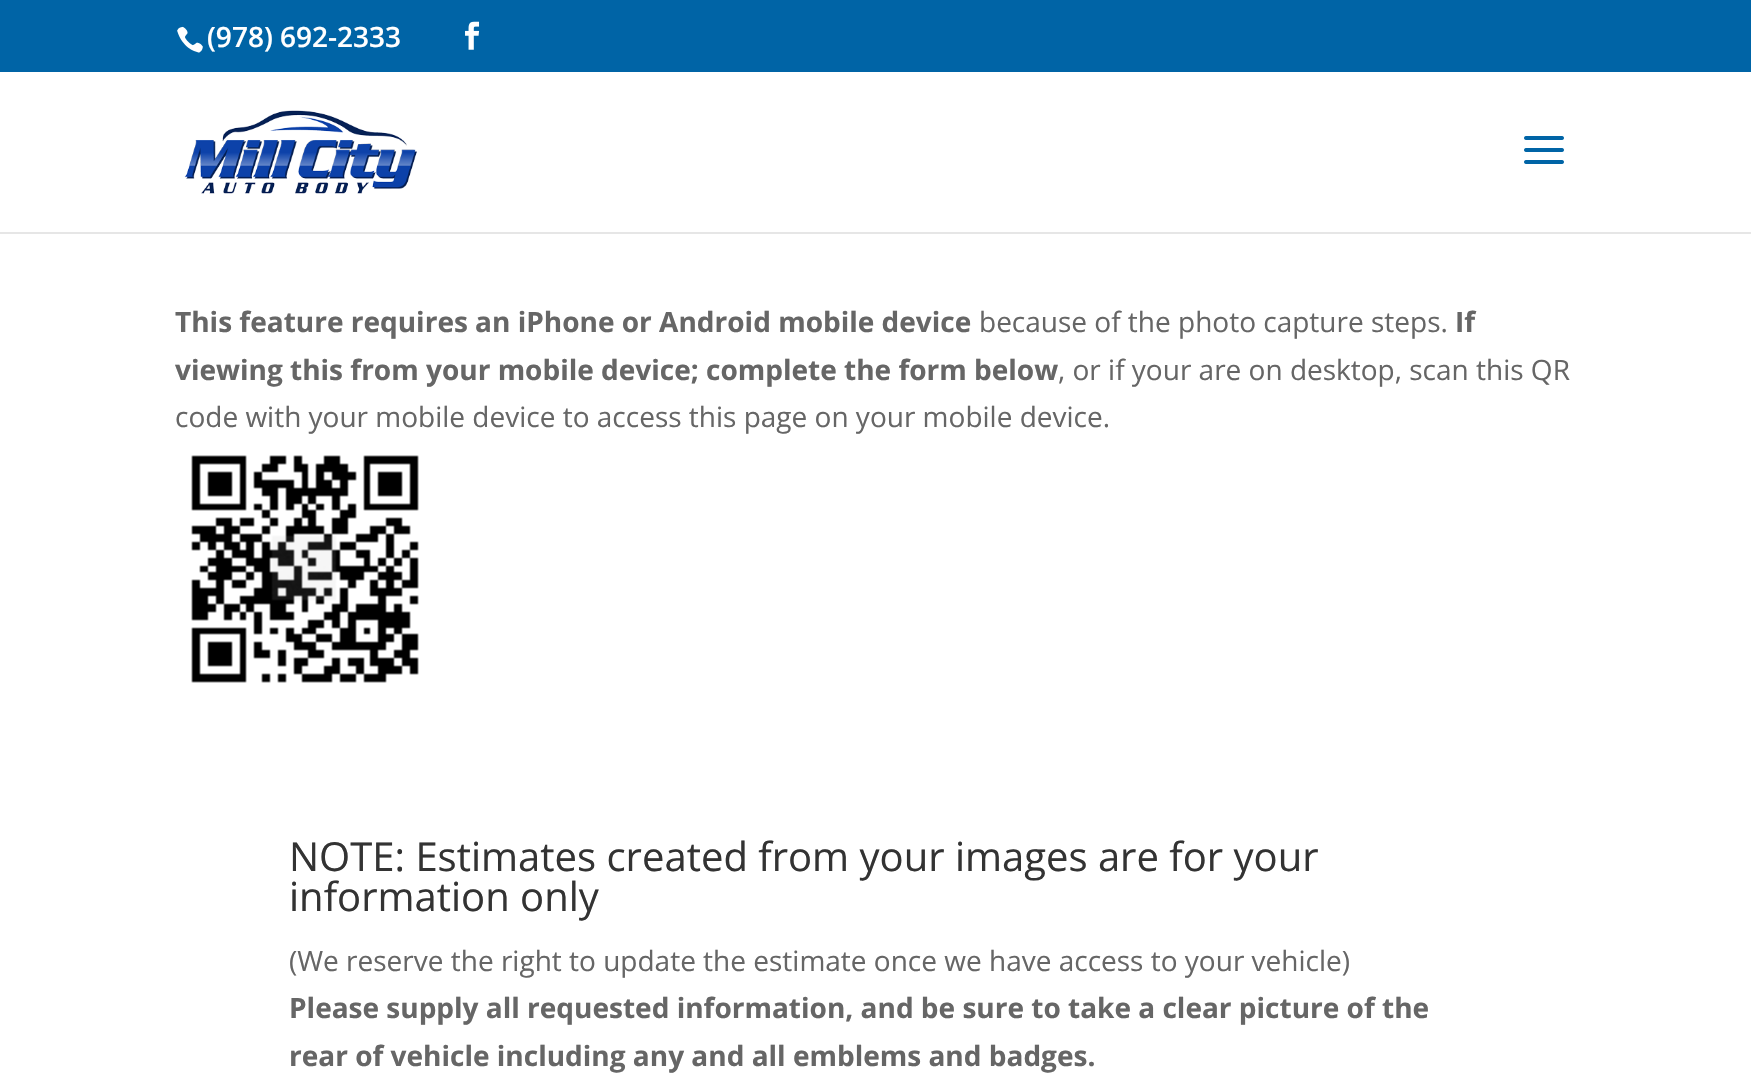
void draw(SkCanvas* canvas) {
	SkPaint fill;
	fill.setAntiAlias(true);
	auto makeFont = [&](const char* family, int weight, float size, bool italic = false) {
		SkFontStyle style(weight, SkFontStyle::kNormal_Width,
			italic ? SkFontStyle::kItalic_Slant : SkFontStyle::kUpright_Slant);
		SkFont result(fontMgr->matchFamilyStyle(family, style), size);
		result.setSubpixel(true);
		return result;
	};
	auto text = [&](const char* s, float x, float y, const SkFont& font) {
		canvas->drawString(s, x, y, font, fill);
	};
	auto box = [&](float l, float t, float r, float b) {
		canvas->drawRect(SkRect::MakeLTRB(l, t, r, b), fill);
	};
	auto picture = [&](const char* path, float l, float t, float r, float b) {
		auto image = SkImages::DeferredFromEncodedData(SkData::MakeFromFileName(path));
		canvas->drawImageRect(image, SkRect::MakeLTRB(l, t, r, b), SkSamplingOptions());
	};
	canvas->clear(0xFFFFFFFF);
	fill.setColor(0xFF0064A6);
	box(0, 0, 1751, 72);
	picture("image0.png", 177, 26, 203, 53);
	picture("image1.png", 465, 21, 480, 50);
	fill.setColor(0xFFE6E6E6);
	box(0, 232, 1751, 234);
	picture("image2.png", 184, 110, 417, 194);
	picture("image3.png", 1524, 136, 1564, 164);
	picture("image4.png", 191, 455, 419, 683);
	auto font1 = makeFont("Open Sans", 600, 28);
	fill.setColor(0xFFFFFFFF);
	text("(978) 692-2333", 207, 47, font1);
	auto font2 = makeFont("Open Sans", 700, 28);
	fill.setColor(0xFF666666);
	text("This feature requires an iPhone or Android mobile device", 175, 332, font2);
	auto font3 = makeFont("Open Sans", 400, 28);
	text("because of the photo capture steps.", 979, 332, font3);
	text("If", 1455, 332, font2);
	text("viewing this from your mobile device; complete the form below", 175, 380, font2);
	text(", or if your are on desktop, scan this QR", 1058, 380, font3);
	text("code with your mobile device to access this page on your mobile device.", 175, 427, font3);
	auto font4 = makeFont("Open Sans", 400, 40);
	fill.setColor(0xFF333333);
	text("NOTE: Estimates created from your images are for your", 289, 871, font4);
	text("information only", 289, 911, font4);
	fill.setColor(0xFF666666);
	text("(We reserve the right to update the estimate once we have access to your vehicle)", 289, 971, font3);
	text("Please supply all requested information, and be sure to take a clear picture of the", 289, 1018, font2);
	text("rear of vehicle including any and all emblems and badges.", 289, 1066, font2);
}
